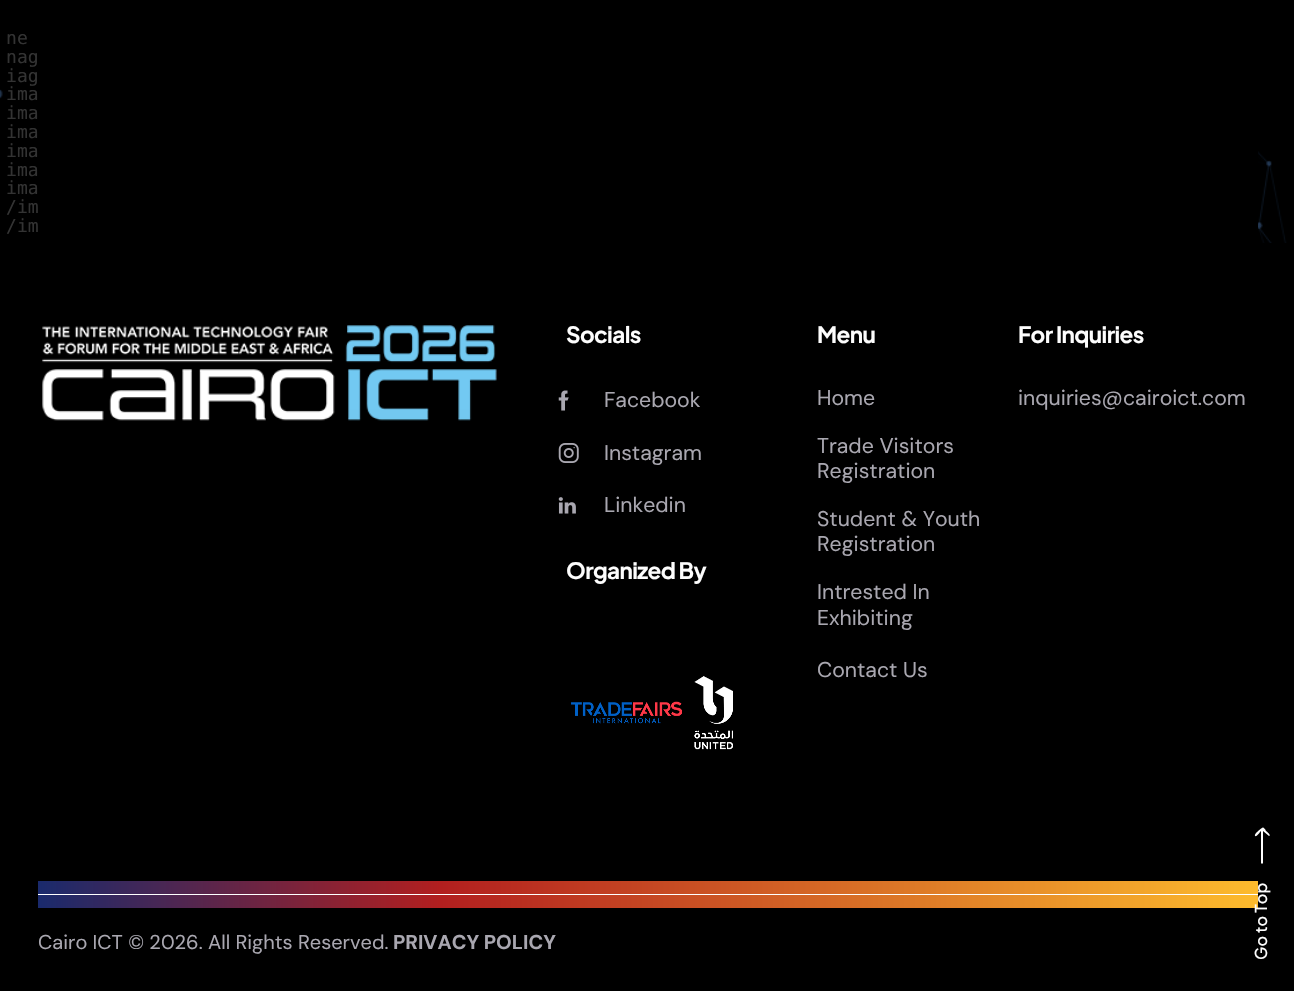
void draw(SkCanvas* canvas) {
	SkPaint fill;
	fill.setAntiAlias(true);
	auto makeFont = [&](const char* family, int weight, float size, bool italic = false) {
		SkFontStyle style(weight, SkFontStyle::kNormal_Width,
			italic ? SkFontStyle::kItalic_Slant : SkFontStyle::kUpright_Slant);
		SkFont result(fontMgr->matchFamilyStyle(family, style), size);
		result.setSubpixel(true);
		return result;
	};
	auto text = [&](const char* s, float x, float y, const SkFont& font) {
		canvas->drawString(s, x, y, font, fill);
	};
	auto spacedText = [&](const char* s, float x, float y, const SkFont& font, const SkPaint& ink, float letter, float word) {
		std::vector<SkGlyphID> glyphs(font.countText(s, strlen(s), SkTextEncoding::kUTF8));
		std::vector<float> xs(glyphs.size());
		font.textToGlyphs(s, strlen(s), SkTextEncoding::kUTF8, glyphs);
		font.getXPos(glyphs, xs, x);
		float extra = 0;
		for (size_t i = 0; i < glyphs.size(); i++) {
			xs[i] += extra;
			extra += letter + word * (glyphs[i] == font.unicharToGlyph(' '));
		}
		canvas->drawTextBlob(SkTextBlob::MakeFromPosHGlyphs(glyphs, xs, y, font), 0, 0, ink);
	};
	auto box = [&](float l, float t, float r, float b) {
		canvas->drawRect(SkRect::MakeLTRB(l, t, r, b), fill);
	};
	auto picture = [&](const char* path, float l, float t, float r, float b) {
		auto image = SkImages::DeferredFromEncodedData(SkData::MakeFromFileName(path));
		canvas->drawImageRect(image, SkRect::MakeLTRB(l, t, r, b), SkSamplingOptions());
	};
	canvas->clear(0xFF000000);
	picture("image0.png", 0, 89, 1287, 243);
	fill.setColor(0xFF000000);
	box(166, 89, 1258, 243);
	picture("image1.png", 42, 325, 497, 421);
	picture("image2.png", 558, 390, 569, 411);
	picture("image3.png", 558, 443, 579, 463);
	picture("image4.png", 558, 497, 576, 514);
	picture("image5.png", 571, 676, 733, 750);
	{
		const SkColor colors[] = {0xFF1A2A6C, 0xFFB21F1F, 0xFFFDBB2D};
		const float stops[] = {0, 0.33f, 1};
		const SkPoint ends[] = {{38, 894}, {1258, 894}};
		fill.setShader(SkGradientShader::MakeLinear(ends, colors, stops, 3, SkTileMode::kClamp));
		fill.setAlpha(255);
	}
	box(38, 881, 1258, 908);
	fill.setShader(nullptr);
	fill.setColor(0xFFFFFFFF);
	box(38, 894, 1258, 895);
	fill.setColor(0xFFFDFDFD);
	canvas->drawPath(SkPathBuilder().moveTo(1262, 828).cubicTo(1263, 826, 1266, 830, 1266, 831).cubicTo(1269, 833, 1271, 836, 1269, 836).lineTo(1263, 831).lineTo(1263, 863.5f).lineTo(1261, 863.5f).lineTo(1261, 831).cubicTo(1259.5f, 832.5f, 1257, 837, 1255, 836).cubicTo(1254, 834, 1260, 829, 1262, 828).close().detach(), fill);
	auto font1 = makeFont("DejaVu Sans Mono", 400, 18);
	fill.setColor(0xFF333333);
	spacedText("ne", 6, 44, font1, fill, 0.1f, 0);
	spacedText("nag", 6, 63, font1, fill, 0.1f, 0);
	spacedText("iag", 6, 82, font1, fill, 0.1f, 0);
	spacedText("ima", 6, 100, font1, fill, 0.1f, 0);
	spacedText("ima", 6, 119, font1, fill, 0.1f, 0);
	spacedText("ima", 6, 138, font1, fill, 0.1f, 0);
	spacedText("ima", 6, 157, font1, fill, 0.1f, 0);
	spacedText("ima", 6, 176, font1, fill, 0.1f, 0);
	spacedText("ima", 6, 194, font1, fill, 0.1f, 0);
	spacedText("/im", 6, 213, font1, fill, 0.1f, 0);
	spacedText("/im", 6, 232, font1, fill, 0.1f, 0);
	auto font2 = makeFont("Plus Jakarta Sans", 700, 22.5f);
	fill.setColor(0xFFFDFDFD);
	spacedText("Socials", 566, 343, font2, fill, -0.6f, 0);
	auto font3 = makeFont("DM Sans", 400, 21.25f);
	fill.setColor(0xFFA9A7B0);
	text("Facebook", 604, 407, font3);
	text("Instagram", 604, 460, font3);
	text("Linkedin", 604, 512, font3);
	fill.setColor(0xFFFDFDFD);
	spacedText("Organized By", 566, 579, font2, fill, -0.6f, 0);
	spacedText("Menu", 817, 343, font2, fill, -0.6f, 0);
	fill.setColor(0xFFA9A7B0);
	text("Home", 817, 405, font3);
	text("Trade Visitors", 817, 453, font3);
	text("Registration", 817, 478, font3);
	text("Student & Youth", 817, 526, font3);
	text("Registration", 817, 551, font3);
	text("Intrested In", 817, 599, font3);
	text("Exhibiting", 817, 625, font3);
	text("Contact Us", 817, 677, font3);
	fill.setColor(0xFFFDFDFD);
	spacedText("For Inquiries", 1018, 343, font2, fill, -0.6f, 0);
	fill.setColor(0xFFA9A7B0);
	text("inquiries@cairoict.com", 1018, 405, font3);
	auto font4 = makeFont("DM Sans", 400, 20);
	text("Cairo ICT © 2026. All Rights Reserved.", 38, 949, font4);
	auto font5 = makeFont("DM Sans", 700, 20);
	text("PRIVACY POLICY", 393, 949, font5);
	auto font6 = makeFont("Plus Jakarta Sans", 500, 16.25f);
	fill.setColor(0xFFFDFDFD);
	canvas->save();
	canvas->rotate(-90, 1267, 960);
	spacedText("Go to Top", 1267, 960, font6, fill, 0.1f, 0);
	canvas->restore();
}
